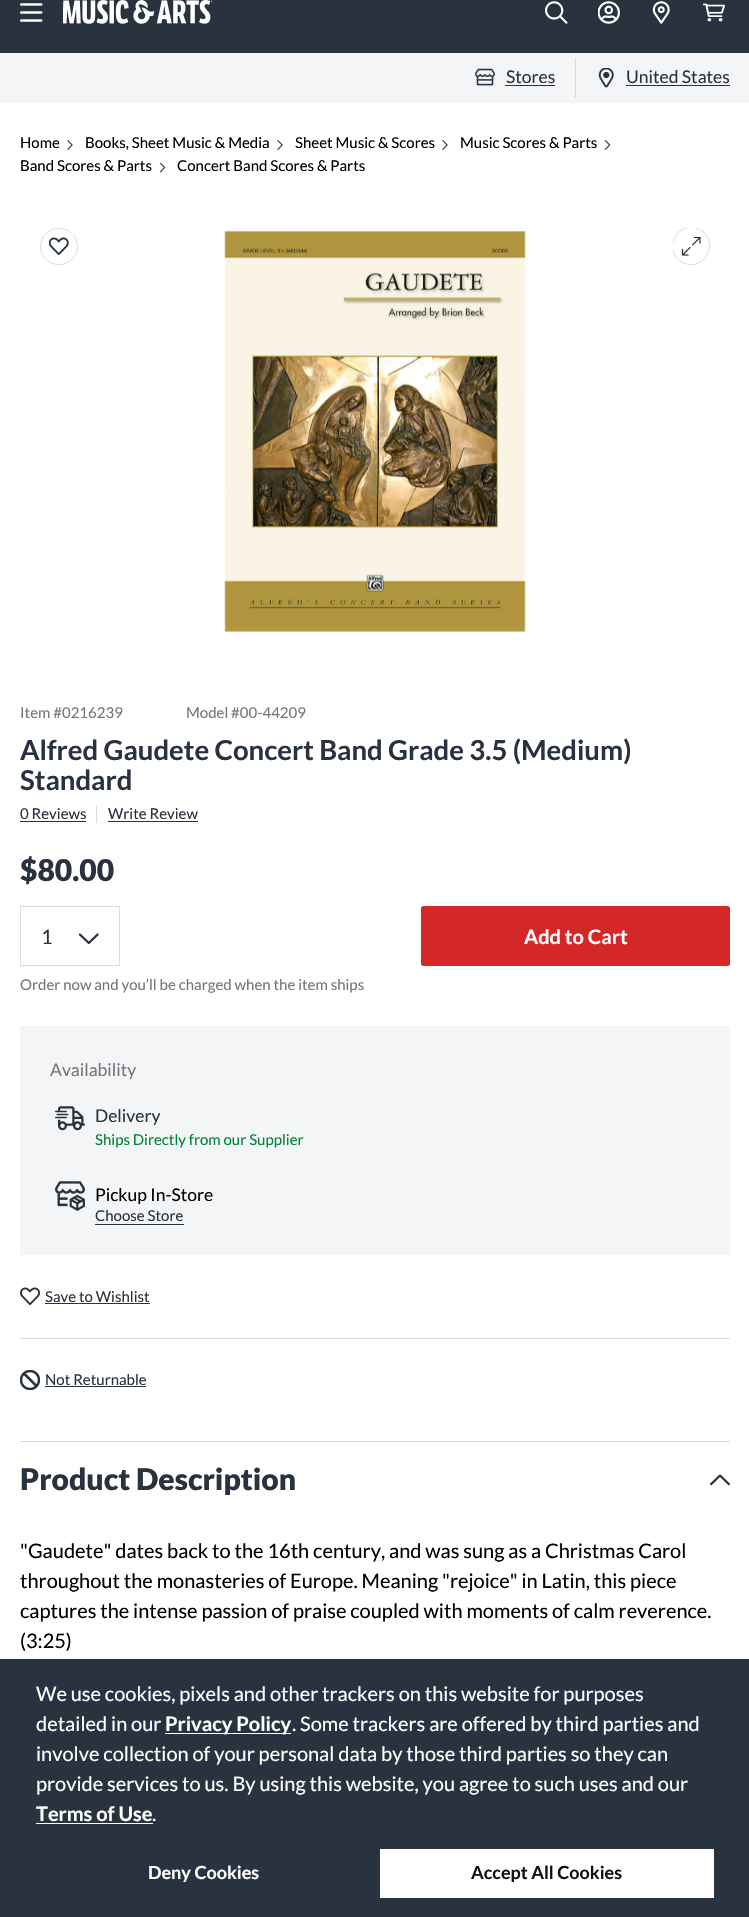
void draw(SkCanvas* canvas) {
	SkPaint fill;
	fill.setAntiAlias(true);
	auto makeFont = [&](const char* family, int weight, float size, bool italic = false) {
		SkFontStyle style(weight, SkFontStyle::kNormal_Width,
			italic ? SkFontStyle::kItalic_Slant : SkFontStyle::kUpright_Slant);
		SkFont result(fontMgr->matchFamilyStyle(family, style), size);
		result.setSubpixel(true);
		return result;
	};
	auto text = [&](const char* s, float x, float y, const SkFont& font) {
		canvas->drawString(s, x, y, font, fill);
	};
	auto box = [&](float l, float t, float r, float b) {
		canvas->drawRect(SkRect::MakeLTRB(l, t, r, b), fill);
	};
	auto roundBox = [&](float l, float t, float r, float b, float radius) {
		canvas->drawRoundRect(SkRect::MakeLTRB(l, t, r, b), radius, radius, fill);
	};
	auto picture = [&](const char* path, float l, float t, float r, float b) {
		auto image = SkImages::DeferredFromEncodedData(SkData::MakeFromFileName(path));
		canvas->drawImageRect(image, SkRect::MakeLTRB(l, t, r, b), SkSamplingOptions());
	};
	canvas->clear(0xFFFFFFFF);
	fill.setColor(0xFF293340);
	box(0, 0, 749, 53);
	picture("image0.png", 20, 3, 43, 22);
	picture("image1.png", 63, 0, 213, 24);
	picture("image2.png", 545, 1, 568, 24);
	picture("image3.png", 598, 1, 620, 24);
	picture("image4.png", 652, 1, 670, 24);
	picture("image5.png", 703, 3, 725, 22);
	fill.setColor(0xFFF4F5F7);
	box(0, 53, 749, 103);
	picture("image6.png", 475, 68, 495, 86);
	fill.setColor(0xFF293340);
	box(505, 85, 555, 86);
	fill.setColor(0xFFD8DCE0);
	box(575, 58, 576, 98);
	picture("image7.png", 598, 68, 614, 88);
	fill.setColor(0xFF293340);
	box(626, 85, 730, 86);
	picture("image8.png", 67, 140, 73, 150);
	picture("image8.png", 277, 140, 283, 150);
	picture("image8.png", 442, 140, 448, 150);
	picture("image9.png", 604, 140, 611, 150);
	picture("image10.png", 159, 163, 166, 173);
	fill.setStyle(SkPaint::kStroke_Style);
	fill.setStrokeWidth(1);
	fill.setColor(0xFFD8DCE0);
	canvas->drawRoundRect(SkRect::MakeLTRB(40.5f, 228.5f, 77.5f, 264.5f), 18, 18, fill);
	picture("image11.png", 49, 237, 69, 255);
	picture("image12.png", 224, 230, 526, 632);
	picture("image13.png", 673, 228, 710, 265);
	fill.setStyle(SkPaint::kFill_Style);
	fill.setColor(0xFF293340);
	box(20, 821, 86, 822);
	fill.setColor(0xFFD8DCE0);
	box(96, 805, 97, 823);
	fill.setColor(0xFF293340);
	box(108, 821, 198, 822);
	fill.setStyle(SkPaint::kStroke_Style);
	fill.setColor(0xFFD8DCE0);
	canvas->drawRect(SkRect::MakeLTRB(20.5f, 906.5f, 119.5f, 965.5f), fill);
	picture("image14.png", 79, 933, 99, 945);
	fill.setStyle(SkPaint::kFill_Style);
	fill.setColor(0xFFD42828);
	roundBox(421, 906, 730, 966, 2.5f);
	fill.setColor(0xFFF4F5F7);
	box(20, 1026, 730, 1255);
	picture("image15.png", 55, 1106, 85, 1131);
	picture("image16.png", 55, 1181, 85, 1211);
	fill.setColor(0xFF293340);
	box(95, 1224, 184, 1225);
	picture("image17.png", 20, 1287, 40, 1305);
	box(45, 1303, 150, 1304);
	fill.setColor(0xFFD8DCE0);
	box(20, 1338, 730, 1339);
	canvas->save();
	canvas->clipRect(SkRect::MakeLTRB(20, 1370, 40, 1390));
	fill.setStyle(SkPaint::kStroke_Style);
	fill.setStrokeWidth(2.5f);
	fill.setColor(0xFF293340);
	canvas->drawCircle(30, 1380, 9, fill);
	canvas->restore();
	canvas->drawPath(SkPathBuilder().moveTo(23.5f, 1373).lineTo(37, 1386.5f).detach(), fill);
	fill.setStyle(SkPaint::kFill_Style);
	box(45, 1386, 146, 1387);
	fill.setColor(0xFFD8DCE0);
	box(20, 1441, 730, 1442);
	picture("image18.png", 710, 1474, 730, 1486);
	fill.setColor(0xFF293340);
	box(0, 1659, 749, 1917);
	fill.setColor(0xFFFFFFFF);
	box(165, 1733, 291, 1734);
	box(36, 1823, 153, 1824);
	box(380, 1849, 714, 1898);
	auto font1 = makeFont("Lato", 400, 17.5f);
	fill.setColor(0xFF293340);
	text("Stores", 506, 83, font1);
	text("United States", 626, 83, font1);
	auto font2 = makeFont("Lato", 400, 15);
	fill.setColor(0xFF000000);
	text("Home", 20, 148, font2);
	text("Books, Sheet Music & Media", 85, 148, font2);
	text("Sheet Music & Scores", 295, 148, font2);
	text("Music Scores & Parts", 460, 148, font2);
	text("Band Scores & Parts", 20, 171, font2);
	text("Concert Band Scores & Parts", 177, 171, font2);
	fill.setColor(0xFF75757C);
	text("Item #0216239", 20, 718, font2);
	text("Model #00-44209", 186, 718, font2);
	auto font3 = makeFont("Lato", 700, 27.5f);
	fill.setColor(0xFF293340);
	text("Alfred Gaudete Concert Band Grade 3.5 (Medium)", 20, 760, font3);
	text("Standard", 20, 790, font3);
	text("0 Reviews", 20, 819, font2);
	text("Write Review", 108, 819, font2);
	auto font4 = makeFont("Lato", 900, 30);
	text("$80.00", 20, 881, font4);
	auto font5 = makeFont("Lato", 400, 20);
	text("1", 41, 944, font5);
	auto font6 = makeFont("Lato", 700, 20);
	fill.setColor(0xFFFFFFFF);
	text("Add to Cart", 524, 944, font6);
	fill.setColor(0xFF75757C);
	text("Order now and you’ll be charged when the item ships", 20, 990, font2);
	text("Availability", 50, 1076, font1);
	fill.setColor(0xFF293340);
	text("Delivery", 95, 1122, font1);
	fill.setColor(0xFF00823A);
	text("Ships Directly from our Supplier", 95, 1145, font2);
	fill.setColor(0xFF000000);
	text("Pickup In-Store", 95, 1201, font1);
	fill.setColor(0xFF293340);
	text("Choose Store", 95, 1221, font2);
	text("Save to Wishlist", 45, 1302, font2);
	text("Not Returnable", 45, 1385, font2);
	text("Product Description", 20, 1490, font4);
	fill.setColor(0xFF000000);
	text("\"Gaudete\" dates back to the 16th century, and was sung as a Christmas Carol", 20, 1558, font5);
	text("throughout the monasteries of Europe. Meaning \"rejoice\" in Latin, this piece", 20, 1588, font5);
	text("captures the intense passion of praise coupled with moments of calm reverence.", 20, 1618, font5);
	text("(3:25)", 20, 1648, font5);
	fill.setColor(0xFFFFFFFF);
	text("We use cookies, pixels and other trackers on this website for purposes", 36, 1701, font5);
	text("detailed in our", 36, 1731, font5);
	text("Privacy Policy", 165, 1731, font6);
	text(". Some trackers are offered by third parties and", 292, 1731, font5);
	text("involve collection of your personal data by those third parties so they can", 36, 1761, font5);
	text("provide services to us. By using this website, you agree to such uses and our", 36, 1791, font5);
	text("Terms of Use", 36, 1821, font6);
	text(".", 152, 1821, font5);
	auto font7 = makeFont("Lato", 700, 18);
	text("Deny Cookies", 148, 1879, font7);
	fill.setColor(0xFF121010);
	text("Accept All Cookies", 471, 1879, font7);
}
